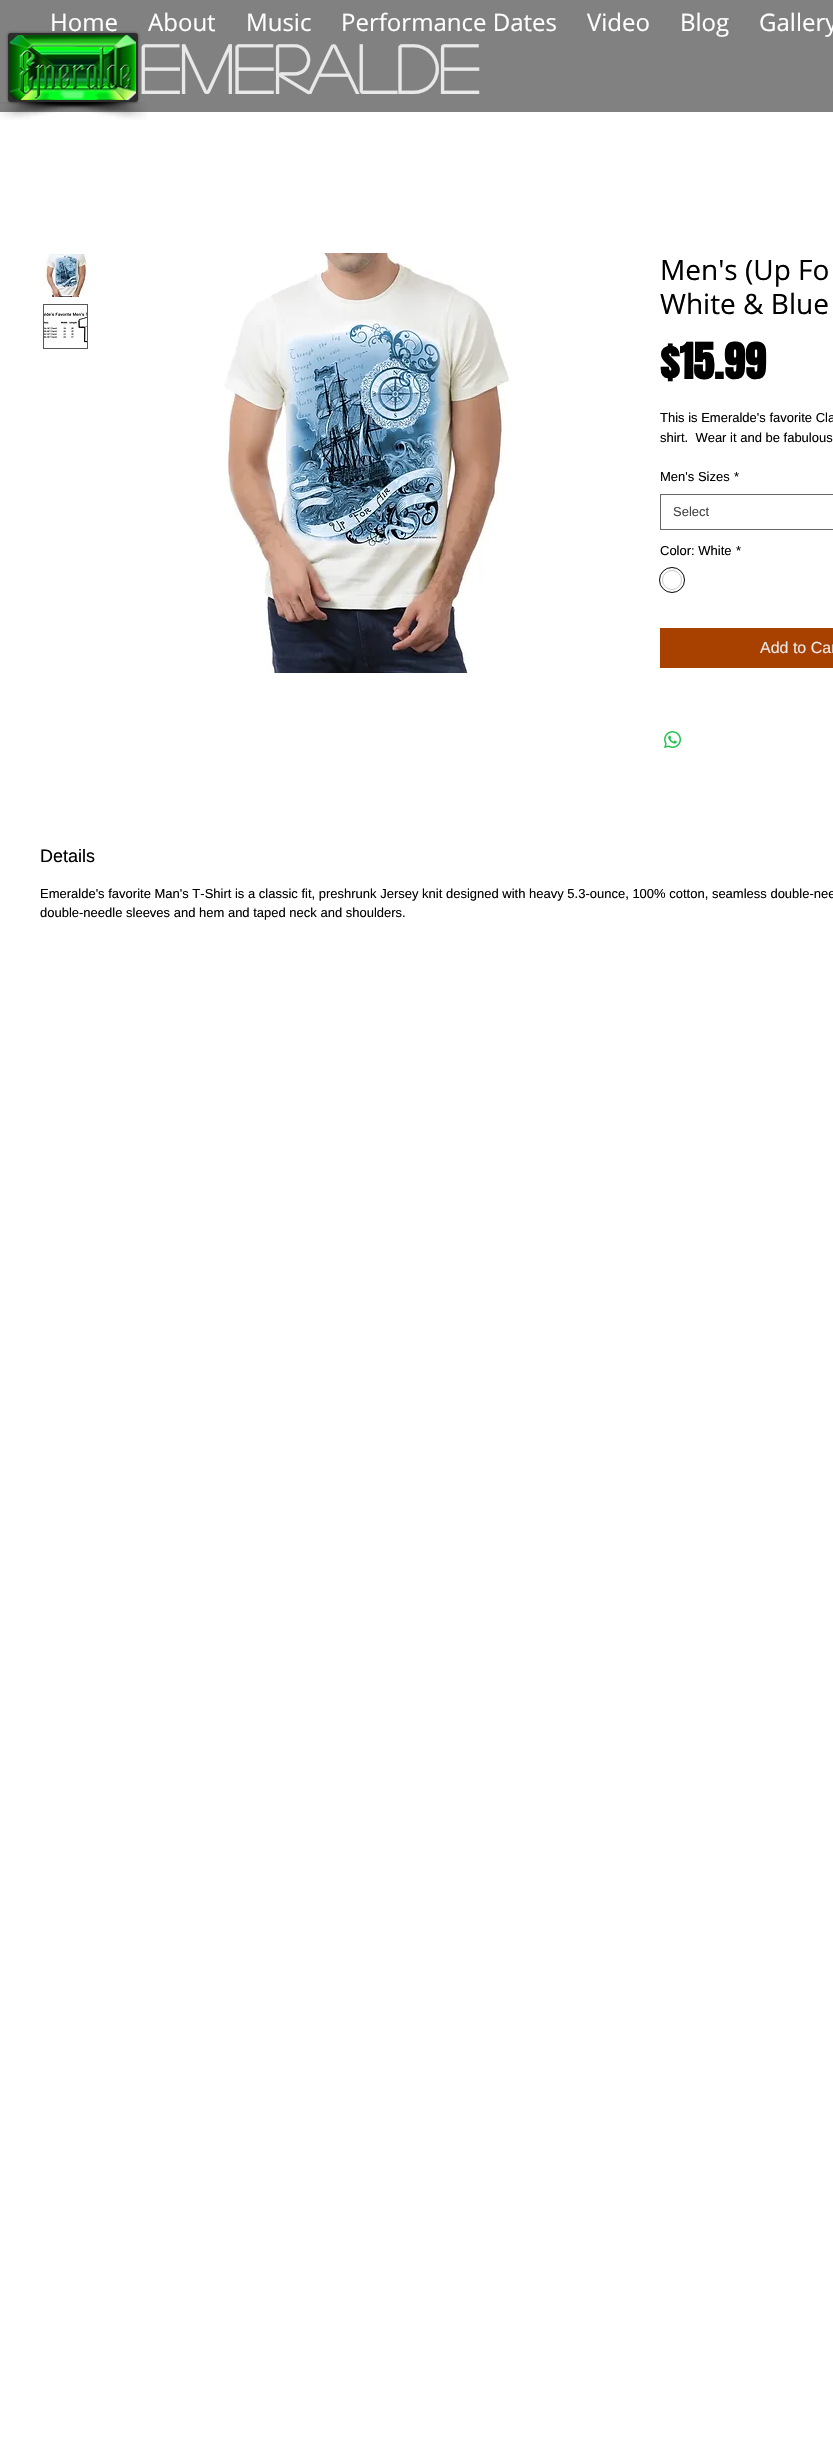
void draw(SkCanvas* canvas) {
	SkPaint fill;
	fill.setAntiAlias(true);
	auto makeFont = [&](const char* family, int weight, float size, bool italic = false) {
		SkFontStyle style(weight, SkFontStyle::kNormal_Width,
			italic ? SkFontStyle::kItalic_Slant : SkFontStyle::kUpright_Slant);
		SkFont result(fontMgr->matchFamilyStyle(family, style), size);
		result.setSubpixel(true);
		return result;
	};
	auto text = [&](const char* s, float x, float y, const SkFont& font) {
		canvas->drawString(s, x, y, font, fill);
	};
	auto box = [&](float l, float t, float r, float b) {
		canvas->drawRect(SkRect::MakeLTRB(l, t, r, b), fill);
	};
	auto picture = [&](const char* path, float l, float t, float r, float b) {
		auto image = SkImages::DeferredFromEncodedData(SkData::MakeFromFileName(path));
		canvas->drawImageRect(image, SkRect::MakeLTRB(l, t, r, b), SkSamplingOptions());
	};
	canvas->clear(0xFFFFFFFF);
	fill.setColor(0xFF818181);
	box(0, 0, 833, 112);
	fill.setColor(0x80000000);
	fill.setMaskFilter(SkMaskFilter::MakeBlur(kNormal_SkBlurStyle, 1.5f));
	canvas->drawRoundRect(SkRect::MakeLTRB(8, 33, 138, 102), 3, 3, fill);
	fill.setMaskFilter(nullptr);
	fill.setColor(0xFF2D2D2D);
	canvas->drawRoundRect(SkRect::MakeLTRB(9, 34, 137, 101), 2, 2, fill);
	fill.setStyle(SkPaint::kStroke_Style);
	fill.setStrokeWidth(2);
	canvas->drawRoundRect(SkRect::MakeLTRB(9, 34, 137, 101), 2, 2, fill);
	picture("image0.png", 10, 35, 136, 100);
	picture("image1.png", 0, 102, 146, 120);
	picture("image2.png", 0, 102, 147, 120);
	fill.setStyle(SkPaint::kFill_Style);
	fill.setColor(0xFF7D7D7D);
	box(831, 92, 833, 93);
	picture("image3.png", 44, 254, 87, 297);
	fill.setStyle(SkPaint::kStroke_Style);
	fill.setStrokeWidth(1);
	fill.setColor(0xFF575757);
	canvas->drawRect(SkRect::MakeLTRB(43.5f, 304.5f, 87.5f, 348.5f), fill);
	picture("image4.png", 44, 309, 87, 343);
	picture("image5.png", 224, 253, 509, 673);
	fill.setColor(0xFF666666);
	canvas->drawRect(SkRect::MakeLTRB(660.5f, 494.5f, 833.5f, 529.5f), fill);
	fill.setColor(0xFF000000);
	canvas->drawCircle(672, 580, 12.5f, fill);
	fill.setColor(0xFFC9C9C9);
	canvas->drawCircle(672, 580, 9.5f, fill);
	fill.setStyle(SkPaint::kFill_Style);
	fill.setColor(0xFFA84000);
	box(660, 628, 833, 668);
	picture("image6.png", 664, 731, 681, 748);
	auto font1 = makeFont("Open Sans", 400, 24);
	fill.setColor(0xFFFFFFFF);
	text("Home", 50, 31, font1);
	text("About", 148, 31, font1);
	text("Music", 246, 31, font1);
	text("Performance Dates", 341, 31, font1);
	text("Video", 587, 31, font1);
	text("Blog", 680, 31, font1);
	text("Gallery", 759, 31, font1);
	auto font2 = makeFont("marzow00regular", 700, 68);
	fill.setColor(0xFFE8E8E8);
	text("Emeralde", 139, 94, font2);
	auto font3 = makeFont("Open Sans", 400, 28);
	fill.setColor(0xFF000000);
	text("Men's (Up Fo", 660, 280, font3);
	text("White & Blue", 660, 314, font3);
	auto font4 = makeFont("Anton", 700, 42);
	text("$15.99", 660, 379, font4);
	auto font5 = makeFont("Liberation Sans", 400, 13);
	text("This is Emeralde's favorite Cla", 660, 422, font5);
	text("shirt.  Wear it and be fabulous", 660, 442, font5);
	text("Men's Sizes", 660, 481, font5);
	text("*", 734, 481, font5);
	fill.setColor(0xFF444444);
	text("Select", 673, 516, font5);
	fill.setColor(0xFF000000);
	text("Color: White", 660, 555, font5);
	text("*", 736, 555, font5);
	auto font6 = makeFont("Liberation Sans", 400, 16);
	fill.setColor(0xFFE8E8E8);
	text("Add to Car", 760, 653, font6);
	auto font7 = makeFont("Liberation Sans", 400, 18);
	fill.setColor(0xFF000000);
	text("Details", 40, 862, font7);
	text("Emeralde's favorite Man's T-Shirt is a classic fit, preshrunk Jersey knit designed with heavy 5.3-ounce, 100% cotton, seamless double-nee", 40, 898, font5);
	text("double-needle sleeves and hem and taped neck and shoulders.", 40, 917, font5);
}
